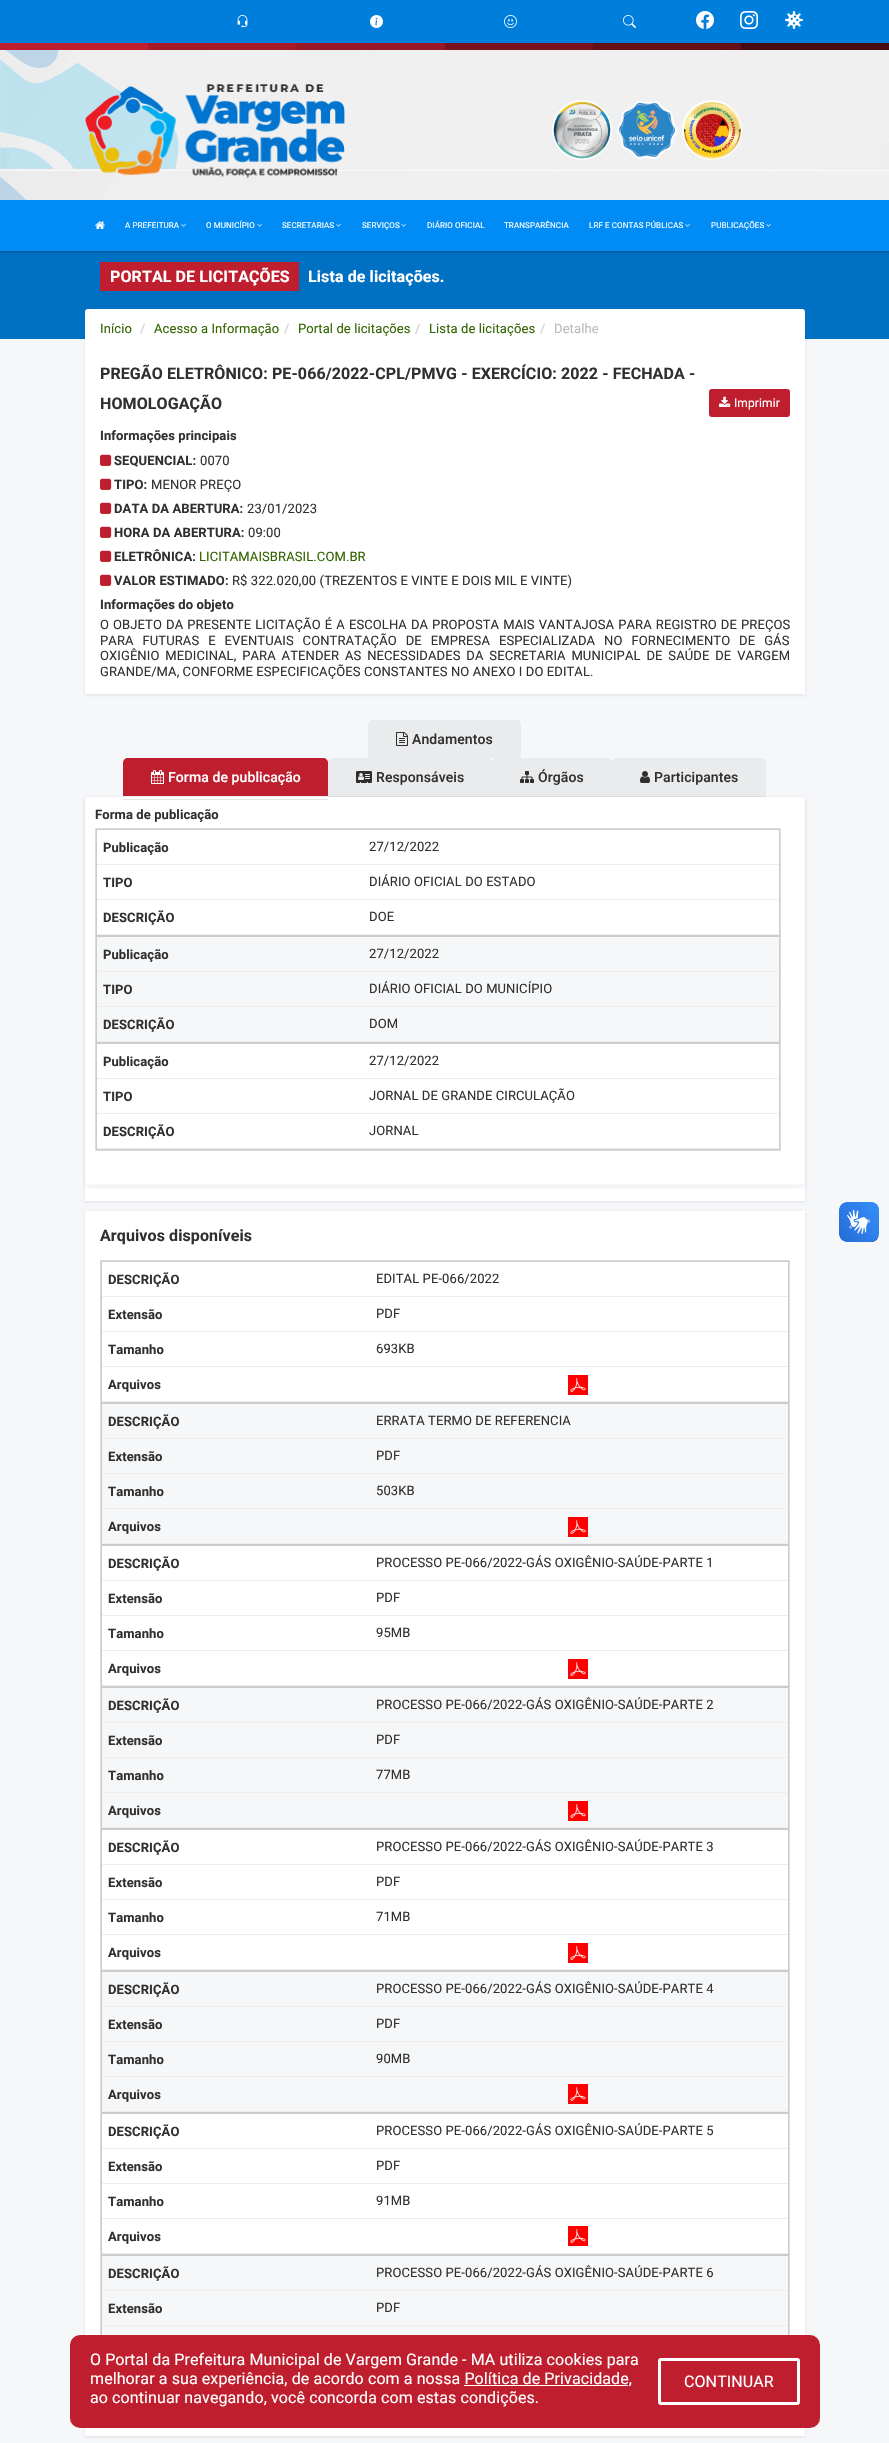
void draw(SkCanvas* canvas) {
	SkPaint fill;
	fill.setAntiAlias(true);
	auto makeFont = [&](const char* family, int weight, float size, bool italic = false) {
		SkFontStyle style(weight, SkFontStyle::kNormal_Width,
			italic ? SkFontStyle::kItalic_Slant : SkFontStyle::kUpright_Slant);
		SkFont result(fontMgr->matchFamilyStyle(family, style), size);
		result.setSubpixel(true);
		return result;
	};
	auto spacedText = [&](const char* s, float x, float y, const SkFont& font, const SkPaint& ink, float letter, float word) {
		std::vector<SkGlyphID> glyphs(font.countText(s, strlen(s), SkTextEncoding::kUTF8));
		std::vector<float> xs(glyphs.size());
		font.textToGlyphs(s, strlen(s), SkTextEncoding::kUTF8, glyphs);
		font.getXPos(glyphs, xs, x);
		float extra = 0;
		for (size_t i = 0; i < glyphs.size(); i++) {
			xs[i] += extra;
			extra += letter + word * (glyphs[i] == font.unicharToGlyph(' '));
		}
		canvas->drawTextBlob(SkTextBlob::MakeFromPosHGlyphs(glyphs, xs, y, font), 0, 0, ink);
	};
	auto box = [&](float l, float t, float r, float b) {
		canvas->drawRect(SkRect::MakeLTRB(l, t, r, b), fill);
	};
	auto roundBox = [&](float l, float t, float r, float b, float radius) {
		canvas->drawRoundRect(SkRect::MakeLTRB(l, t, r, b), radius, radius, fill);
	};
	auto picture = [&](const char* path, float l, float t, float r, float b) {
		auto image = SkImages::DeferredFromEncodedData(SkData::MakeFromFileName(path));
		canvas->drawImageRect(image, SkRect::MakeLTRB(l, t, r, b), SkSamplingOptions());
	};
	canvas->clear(0xFFF6F7F8);
	fill.setColor(0x17030047);
	fill.setMaskFilter(SkMaskFilter::MakeBlur(kNormal_SkBlurStyle, 1.5f));
	canvas->drawRect(SkRect::MakeLTRB(85, 310, 805, 695), fill);
	fill.setMaskFilter(nullptr);
	fill.setColor(0xFF0070C3);
	box(0, 251, 889, 339);
	fill.setColor(0x4D000000);
	fill.setMaskFilter(SkMaskFilter::MakeBlur(kNormal_SkBlurStyle, 1));
	canvas->drawRect(SkRect::MakeLTRB(0, 1, 889, 252), fill);
	fill.setMaskFilter(nullptr);
	picture("image0.png", 0, 50, 889, 200);
	fill.setColor(0xFF007EDC);
	box(0, 0, 889, 43);
	picture("image1.png", 237, 15, 248, 28);
	picture("image2.png", 370, 15, 383, 28);
	picture("image3.png", 504, 15, 517, 28);
	picture("image4.png", 623, 15, 636, 28);
	picture("image5.png", 696, 11, 714, 29);
	picture("image6.png", 740, 11, 758, 29);
	picture("image7.png", 785, 11, 803, 29);
	fill.setColor(0xFFBE1E2D);
	box(0, 43, 148, 50);
	fill.setColor(0xFFA61A27);
	box(148, 43, 296, 50);
	fill.setColor(0xFF971724);
	box(296, 43, 445, 50);
	fill.setColor(0xFF7A121D);
	box(445, 43, 593, 50);
	fill.setColor(0xFF660F17);
	box(593, 43, 741, 50);
	fill.setColor(0xFF480B11);
	box(741, 43, 889, 50);
	picture("image8.png", 85, 84, 345, 178);
	picture("image9.png", 552, 100, 612, 160);
	picture("image10.png", 617, 101, 677, 159);
	picture("image11.png", 682, 100, 742, 160);
	fill.setColor(0xFF008CF4);
	box(0, 200, 889, 251);
	picture("image12.png", 95, 221, 105, 229);
	picture("image13.png", 181, 224, 186, 227);
	picture("image13.png", 257, 224, 262, 227);
	picture("image13.png", 336, 224, 341, 227);
	picture("image13.png", 401, 224, 406, 227);
	picture("image13.png", 685, 224, 690, 227);
	picture("image13.png", 766, 224, 771, 227);
	fill.setColor(0xFFBE1E2D);
	box(100, 262, 299, 291);
	fill.setColor(0xFFFFFFFF);
	box(85, 346, 805, 694);
	roundBox(85, 309, 805, 349, 3);
	fill.setColor(0xFFBE1E2D);
	roundBox(709, 389, 790, 417, 3);
	picture("image14.png", 719, 396, 731, 407);
	picture("image15.png", 100, 454, 112, 466);
	picture("image15.png", 100, 478, 112, 490);
	picture("image15.png", 100, 502, 112, 514);
	picture("image15.png", 100, 526, 112, 538);
	picture("image15.png", 100, 550, 112, 562);
	picture("image15.png", 100, 574, 112, 586);
	fill.setColor(0xFFEAEBEC);
	canvas->drawPath(SkPathBuilder().moveTo(373, 720).lineTo(516, 720).cubicTo(519, 720, 521, 722, 521, 725).lineTo(521, 758).lineTo(368, 758).lineTo(368, 725).cubicTo(368, 722, 370, 720, 373, 720).close().detach(), fill);
	picture("image16.png", 396, 732, 408, 746);
	fill.setColor(0x17030047);
	fill.setMaskFilter(SkMaskFilter::MakeBlur(kNormal_SkBlurStyle, 1.5f));
	canvas->drawRect(SkRect::MakeLTRB(85, 798, 805, 1202), fill);
	fill.setMaskFilter(nullptr);
	fill.setColor(0xFFFFFFFF);
	box(85, 797, 805, 1201);
	fill.setColor(0x17030047);
	fill.setMaskFilter(SkMaskFilter::MakeBlur(kNormal_SkBlurStyle, 1.5f));
	canvas->drawRoundRect(SkRect::MakeLTRB(85, 798, 805, 1187), 6, 6, fill);
	fill.setMaskFilter(nullptr);
	fill.setColor(0xFFFFFFFF);
	roundBox(85, 797, 805, 1186, 6);
	fill.setColor(0xFFE6E6E6);
	box(123, 799, 328, 800);
	fill.setColor(0xFFBE1E2D);
	canvas->drawPath(SkPathBuilder().moveTo(128, 758).lineTo(323, 758).cubicTo(326, 758, 328, 760, 328, 763).lineTo(328, 796).lineTo(123, 796).lineTo(123, 763).cubicTo(123, 760, 125, 758, 128, 758).close().detach(), fill);
	picture("image17.png", 151, 770, 164, 784);
	fill.setColor(0xFFDBDBDB);
	box(328, 796, 766, 797);
	fill.setColor(0xFFEAEBEC);
	canvas->drawPath(SkPathBuilder().moveTo(333, 758).lineTo(487, 758).cubicTo(490, 758, 492, 760, 492, 763).lineTo(492, 796).lineTo(328, 796).lineTo(328, 763).cubicTo(328, 760, 330, 758, 333, 758).close().detach(), fill);
	picture("image18.png", 356, 771, 372, 783);
	canvas->drawPath(SkPathBuilder().moveTo(497, 758).lineTo(607, 758).cubicTo(610, 758, 612, 760, 612, 763).lineTo(612, 796).lineTo(492, 796).lineTo(492, 763).cubicTo(492, 760, 494, 758, 497, 758).close().detach(), fill);
	picture("image19.png", 520, 771, 534, 783);
	canvas->drawPath(SkPathBuilder().moveTo(617, 758).lineTo(761, 758).cubicTo(764, 758, 766, 760, 766, 763).lineTo(766, 796).lineTo(612, 796).lineTo(612, 763).cubicTo(612, 760, 614, 758, 617, 758).close().detach(), fill);
	picture("image20.png", 640, 771, 650, 783);
	fill.setColor(0xFFF6F7F8);
	box(88, 1184, 802, 1186);
	fill.setColor(0xFFDDDDDD);
	box(95, 828, 781, 829);
	box(780, 828, 781, 1151);
	box(95, 1150, 781, 1151);
	box(95, 828, 96, 1151);
	fill.setStyle(SkPaint::kStroke_Style);
	fill.setStrokeWidth(1);
	fill.setColor(0xFFCCCCCC);
	canvas->drawRect(SkRect::MakeLTRB(96.5f, 829.5f, 779.5f, 935.5f), fill);
	fill.setStyle(SkPaint::kFill_Style);
	fill.setColor(0xFFEEEEEE);
	box(97, 864, 779, 865);
	box(97, 899, 779, 900);
	box(97, 934, 779, 935);
	fill.setColor(0xFFF6F7F8);
	box(97, 937, 779, 1041);
	fill.setStyle(SkPaint::kStroke_Style);
	fill.setColor(0xFFCCCCCC);
	canvas->drawRect(SkRect::MakeLTRB(96.5f, 936.5f, 779.5f, 1042.5f), fill);
	fill.setStyle(SkPaint::kFill_Style);
	fill.setColor(0xFFEEEEEE);
	box(97, 971, 779, 972);
	box(97, 1006, 779, 1007);
	box(97, 1041, 779, 1042);
	fill.setStyle(SkPaint::kStroke_Style);
	fill.setColor(0xFFCCCCCC);
	canvas->drawRect(SkRect::MakeLTRB(96.5f, 1043.5f, 779.5f, 1149.5f), fill);
	fill.setStyle(SkPaint::kFill_Style);
	fill.setColor(0xFFEEEEEE);
	box(97, 1078, 779, 1079);
	box(97, 1113, 779, 1114);
	box(97, 1148, 779, 1149);
	picture("image21.png", 839, 1202, 879, 1242);
	picture("image22.png", 839, 1202, 879, 1242);
	fill.setColor(0x17030047);
	fill.setMaskFilter(SkMaskFilter::MakeBlur(kNormal_SkBlurStyle, 1.5f));
	canvas->drawRect(SkRect::MakeLTRB(85, 1212, 805, 2437), fill);
	fill.setMaskFilter(nullptr);
	fill.setColor(0xFFFFFFFF);
	box(85, 1211, 805, 2436);
	fill.setColor(0xFFDDDDDD);
	box(100, 1260, 790, 1261);
	box(789, 1260, 790, 2335);
	box(100, 1260, 101, 2335);
	fill.setStyle(SkPaint::kStroke_Style);
	fill.setColor(0xFFCCCCCC);
	canvas->drawRect(SkRect::MakeLTRB(101.5f, 1261.5f, 788.5f, 1402.5f), fill);
	fill.setStyle(SkPaint::kFill_Style);
	fill.setColor(0xFFEEEEEE);
	box(102, 1296, 788, 1297);
	box(102, 1331, 788, 1332);
	box(102, 1366, 788, 1367);
	box(102, 1401, 788, 1402);
	picture("image23.png", 568, 1375, 588, 1395);
	fill.setColor(0xFFF6F7F8);
	box(102, 1404, 788, 1543);
	fill.setStyle(SkPaint::kStroke_Style);
	fill.setColor(0xFFCCCCCC);
	canvas->drawRect(SkRect::MakeLTRB(101.5f, 1403.5f, 788.5f, 1544.5f), fill);
	fill.setStyle(SkPaint::kFill_Style);
	fill.setColor(0xFFEEEEEE);
	box(102, 1438, 788, 1439);
	box(102, 1473, 788, 1474);
	box(102, 1508, 788, 1509);
	box(102, 1543, 788, 1544);
	picture("image23.png", 568, 1517, 588, 1537);
	fill.setStyle(SkPaint::kStroke_Style);
	fill.setColor(0xFFCCCCCC);
	canvas->drawRect(SkRect::MakeLTRB(101.5f, 1545.5f, 788.5f, 1686.5f), fill);
	fill.setStyle(SkPaint::kFill_Style);
	fill.setColor(0xFFEEEEEE);
	box(102, 1580, 788, 1581);
	box(102, 1615, 788, 1616);
	box(102, 1650, 788, 1651);
	box(102, 1685, 788, 1686);
	picture("image23.png", 568, 1659, 588, 1679);
	fill.setColor(0xFFF6F7F8);
	box(102, 1688, 788, 1827);
	fill.setStyle(SkPaint::kStroke_Style);
	fill.setColor(0xFFCCCCCC);
	canvas->drawRect(SkRect::MakeLTRB(101.5f, 1687.5f, 788.5f, 1828.5f), fill);
	fill.setStyle(SkPaint::kFill_Style);
	fill.setColor(0xFFEEEEEE);
	box(102, 1722, 788, 1723);
	box(102, 1757, 788, 1758);
	box(102, 1792, 788, 1793);
	box(102, 1827, 788, 1828);
	picture("image23.png", 568, 1801, 588, 1821);
	fill.setStyle(SkPaint::kStroke_Style);
	fill.setColor(0xFFCCCCCC);
	canvas->drawRect(SkRect::MakeLTRB(101.5f, 1829.5f, 788.5f, 1970.5f), fill);
	fill.setStyle(SkPaint::kFill_Style);
	fill.setColor(0xFFEEEEEE);
	box(102, 1864, 788, 1865);
	box(102, 1899, 788, 1900);
	box(102, 1934, 788, 1935);
	box(102, 1969, 788, 1970);
	picture("image23.png", 568, 1943, 588, 1963);
	fill.setColor(0xFFF6F7F8);
	box(102, 1972, 788, 2111);
	fill.setStyle(SkPaint::kStroke_Style);
	fill.setColor(0xFFCCCCCC);
	canvas->drawRect(SkRect::MakeLTRB(101.5f, 1971.5f, 788.5f, 2112.5f), fill);
	fill.setStyle(SkPaint::kFill_Style);
	fill.setColor(0xFFEEEEEE);
	box(102, 2006, 788, 2007);
	box(102, 2041, 788, 2042);
	box(102, 2076, 788, 2077);
	box(102, 2111, 788, 2112);
	picture("image23.png", 568, 2084, 588, 2104);
	fill.setStyle(SkPaint::kStroke_Style);
	fill.setColor(0xFFCCCCCC);
	canvas->drawRect(SkRect::MakeLTRB(101.5f, 2113.5f, 788.5f, 2254.5f), fill);
	fill.setStyle(SkPaint::kFill_Style);
	fill.setColor(0xFFEEEEEE);
	box(102, 2148, 788, 2149);
	box(102, 2183, 788, 2184);
	box(102, 2218, 788, 2219);
	box(102, 2253, 788, 2254);
	picture("image23.png", 568, 2226, 588, 2246);
	fill.setColor(0xFFF6F7F8);
	box(102, 2256, 788, 2335);
	fill.setStyle(SkPaint::kStroke_Style);
	fill.setColor(0xFFCCCCCC);
	canvas->drawRect(SkRect::MakeLTRB(101.5f, 2255.5f, 788.5f, 2396.5f), fill);
	fill.setStyle(SkPaint::kFill_Style);
	fill.setColor(0xFFEEEEEE);
	box(102, 2290, 788, 2291);
	box(102, 2325, 788, 2326);
	fill.setColor(0xFFBE1E2D);
	roundBox(70, 2335, 820, 2428, 10);
	fill.setColor(0xFFFFFFFF);
	box(464, 2385, 628, 2386);
	fill.setStyle(SkPaint::kStroke_Style);
	fill.setStrokeWidth(3);
	canvas->drawRoundRect(SkRect::MakeLTRB(659.5f, 2359.5f, 798.5f, 2403.5f), 1.5f, 1.5f, fill);
	auto font1 = makeFont("Roboto", 400, 8);
	fill.setStyle(SkPaint::kFill_Style);
	spacedText("A PREFEITURA", 125, 228, font1, fill, 0.1f, 0);
	spacedText("O MUNICÍPIO", 206, 228, font1, fill, 0.1f, 0);
	spacedText("SECRETARIAS", 282, 228, font1, fill, 0.1f, 0);
	spacedText("SERVIÇOS", 362, 228, font1, fill, 0.1f, 0);
	spacedText("DIÁRIO OFICIAL", 427, 228, font1, fill, 0.1f, 0);
	spacedText("TRANSPARÊNCIA", 504, 228, font1, fill, 0.1f, 0);
	spacedText("LRF E CONTAS PÚBLICAS", 589, 228, font1, fill, 0.1f, 0);
	spacedText("PUBLICAÇÕES", 711, 228, font1, fill, 0.1f, 0);
	auto font2 = makeFont("Roboto", 700, 16);
	spacedText("PORTAL DE LICITAÇÕES", 110, 282, font2, fill, 0.1f, 0);
	spacedText("Lista de licitações.", 308, 282, font2, fill, 0.1f, 0);
	auto font3 = makeFont("Roboto", 400, 13);
	fill.setColor(0xFF326400);
	spacedText("Início", 100, 333, font3, fill, 0.1f, 0);
	fill.setColor(0xFFCCCCCC);
	spacedText("/", 140, 333, font3, fill, 0.1f, 0);
	fill.setColor(0xFF326400);
	spacedText("Acesso a Informação", 154, 333, font3, fill, 0.1f, 0);
	fill.setColor(0xFFCCCCCC);
	spacedText("/", 284, 333, font3, fill, 0.1f, 0);
	fill.setColor(0xFF326400);
	spacedText("Portal de licitações", 298, 333, font3, fill, 0.1f, 0);
	fill.setColor(0xFFCCCCCC);
	spacedText("/", 415, 333, font3, fill, 0.1f, 0);
	fill.setColor(0xFF326400);
	spacedText("Lista de licitações", 429, 333, font3, fill, 0.1f, 0);
	fill.setColor(0xFFCCCCCC);
	spacedText("/", 540, 333, font3, fill, 0.1f, 0);
	fill.setColor(0xFFBBBBBB);
	spacedText("Detalhe", 554, 333, font3, fill, 0.1f, 0);
	fill.setColor(0xFF303030);
	spacedText("PREGÃO ELETRÔNICO: PE-066/2022-CPL/PMVG - EXERCÍCIO: 2022 - FECHADA -", 100, 379, font2, fill, 0.1f, 0);
	spacedText("HOMOLOGAÇÃO", 100, 409, font2, fill, 0.1f, 0);
	auto font4 = makeFont("Roboto", 400, 12);
	fill.setColor(0xFFFFFFFF);
	spacedText("Imprimir", 734, 407, font4, fill, 0.1f, 0);
	auto font5 = makeFont("Roboto", 700, 13);
	fill.setColor(0xFF303030);
	spacedText("Informações principais", 100, 440, font5, fill, 0.1f, 0);
	spacedText("SEQUENCIAL:", 114, 465, font5, fill, 0.1f, 0);
	spacedText("0070", 200, 465, font3, fill, 0.1f, 0);
	spacedText("TIPO:", 114, 489, font5, fill, 0.1f, 0);
	spacedText("MENOR PREÇO", 151, 489, font3, fill, 0.1f, 0);
	spacedText("DATA DA ABERTURA:", 114, 513, font5, fill, 0.1f, 0);
	spacedText("23/01/2023", 247, 513, font3, fill, 0.1f, 0);
	spacedText("HORA DA ABERTURA:", 114, 537, font5, fill, 0.1f, 0);
	spacedText("09:00", 248, 537, font3, fill, 0.1f, 0);
	spacedText("ELETRÔNICA:", 114, 561, font5, fill, 0.1f, 0);
	fill.setColor(0xFF326400);
	spacedText("LICITAMAISBRASIL.COM.BR", 199, 561, font3, fill, 0.1f, 0);
	fill.setColor(0xFF303030);
	spacedText("VALOR ESTIMADO:", 114, 585, font5, fill, 0.1f, 0);
	spacedText("R$ 322.020,00 (TREZENTOS E VINTE E DOIS MIL E VINTE)", 232, 585, font3, fill, 0.1f, 0);
	spacedText("Informações do objeto", 100, 609, font5, fill, 0.1f, 0);
	spacedText("O OBJETO DA PRESENTE LICITAÇÃO É A ESCOLHA DA PROPOSTA MAIS VANTAJOSA PARA REGISTRO DE PREÇOS", 100, 629, font3, fill, 0.1f, 0.7f);
	spacedText("PARA FUTURAS E EVENTUAIS CONTRATAÇÃO DE EMPRESA ESPECIALIZADA NO FORNECIMENTO DE GÁS", 100, 645, font3, fill, 0.1f, 5.6f);
	spacedText("OXIGÊNIO MEDICINAL, PARA ATENDER AS NECESSIDADES DA SECRETARIA MUNICIPAL DE SAÚDE DE VARGEM", 100, 660, font3, fill, 0.1f, 2.5f);
	spacedText("GRANDE/MA, CONFORME ESPECIFICAÇÕES CONSTANTES NO ANEXO I DO EDITAL.", 100, 676, font3, fill, 0.1f, 0);
	auto font6 = makeFont("Roboto", 500, 14);
	spacedText("Andamentos", 412, 744, font6, fill, 0.1f, 0);
	fill.setColor(0xFFFFFFFF);
	spacedText("Forma de publicação", 168, 782, font6, fill, 0.1f, 0);
	fill.setColor(0xFF303030);
	spacedText("Responsáveis", 376, 782, font6, fill, 0.1f, 0);
	spacedText("Órgãos", 538, 782, font6, fill, 0.1f, 0);
	spacedText("Participantes", 654, 782, font6, fill, 0.1f, 0);
	spacedText("Forma de publicação", 95, 819, font5, fill, 0.1f, 0);
	spacedText("Publicação", 103, 852, font5, fill, 0.1f, 0);
	spacedText("27/12/2022", 369, 851, font3, fill, 0.1f, 0);
	spacedText("TIPO", 103, 887, font5, fill, 0.1f, 0);
	spacedText("DIÁRIO OFICIAL DO ESTADO", 369, 886, font3, fill, 0.1f, 0);
	spacedText("DESCRIÇÃO", 103, 922, font5, fill, 0.1f, 0);
	spacedText("DOE", 369, 921, font3, fill, 0.1f, 0);
	spacedText("Publicação", 103, 959, font5, fill, 0.1f, 0);
	spacedText("27/12/2022", 369, 958, font3, fill, 0.1f, 0);
	spacedText("TIPO", 103, 994, font5, fill, 0.1f, 0);
	spacedText("DIÁRIO OFICIAL DO MUNICÍPIO", 369, 993, font3, fill, 0.1f, 0);
	spacedText("DESCRIÇÃO", 103, 1029, font5, fill, 0.1f, 0);
	spacedText("DOM", 369, 1028, font3, fill, 0.1f, 0);
	spacedText("Publicação", 103, 1066, font5, fill, 0.1f, 0);
	spacedText("27/12/2022", 369, 1065, font3, fill, 0.1f, 0);
	spacedText("TIPO", 103, 1101, font5, fill, 0.1f, 0);
	spacedText("JORNAL DE GRANDE CIRCULAÇÃO", 369, 1100, font3, fill, 0.1f, 0);
	spacedText("DESCRIÇÃO", 103, 1136, font5, fill, 0.1f, 0);
	spacedText("JORNAL", 369, 1135, font3, fill, 0.1f, 0);
	spacedText("Arquivos disponíveis", 100, 1241, font2, fill, 0.1f, 0);
	spacedText("DESCRIÇÃO", 108, 1284, font5, fill, 0.1f, 0);
	spacedText("EDITAL PE-066/2022", 376, 1283, font3, fill, 0.1f, 0);
	spacedText("Extensão", 108, 1319, font5, fill, 0.1f, 0);
	spacedText("PDF", 376, 1318, font3, fill, 0.1f, 0);
	spacedText("Tamanho", 108, 1354, font5, fill, 0.1f, 0);
	spacedText("693KB", 376, 1353, font3, fill, 0.1f, 0);
	spacedText("Arquivos", 108, 1389, font5, fill, 0.1f, 0);
	spacedText("DESCRIÇÃO", 108, 1426, font5, fill, 0.1f, 0);
	spacedText("ERRATA TERMO DE REFERENCIA", 376, 1425, font3, fill, 0.1f, 0);
	spacedText("Extensão", 108, 1461, font5, fill, 0.1f, 0);
	spacedText("PDF", 376, 1460, font3, fill, 0.1f, 0);
	spacedText("Tamanho", 108, 1496, font5, fill, 0.1f, 0);
	spacedText("503KB", 376, 1495, font3, fill, 0.1f, 0);
	spacedText("Arquivos", 108, 1531, font5, fill, 0.1f, 0);
	spacedText("DESCRIÇÃO", 108, 1568, font5, fill, 0.1f, 0);
	spacedText("PROCESSO PE-066/2022-GÁS OXIGÊNIO-SAÚDE-PARTE 1", 376, 1567, font3, fill, 0.1f, 0);
	spacedText("Extensão", 108, 1603, font5, fill, 0.1f, 0);
	spacedText("PDF", 376, 1602, font3, fill, 0.1f, 0);
	spacedText("Tamanho", 108, 1638, font5, fill, 0.1f, 0);
	spacedText("95MB", 376, 1637, font3, fill, 0.1f, 0);
	spacedText("Arquivos", 108, 1673, font5, fill, 0.1f, 0);
	spacedText("DESCRIÇÃO", 108, 1710, font5, fill, 0.1f, 0);
	spacedText("PROCESSO PE-066/2022-GÁS OXIGÊNIO-SAÚDE-PARTE 2", 376, 1709, font3, fill, 0.1f, 0);
	spacedText("Extensão", 108, 1745, font5, fill, 0.1f, 0);
	spacedText("PDF", 376, 1744, font3, fill, 0.1f, 0);
	spacedText("Tamanho", 108, 1780, font5, fill, 0.1f, 0);
	spacedText("77MB", 376, 1779, font3, fill, 0.1f, 0);
	spacedText("Arquivos", 108, 1815, font5, fill, 0.1f, 0);
	spacedText("DESCRIÇÃO", 108, 1852, font5, fill, 0.1f, 0);
	spacedText("PROCESSO PE-066/2022-GÁS OXIGÊNIO-SAÚDE-PARTE 3", 376, 1851, font3, fill, 0.1f, 0);
	spacedText("Extensão", 108, 1887, font5, fill, 0.1f, 0);
	spacedText("PDF", 376, 1886, font3, fill, 0.1f, 0);
	spacedText("Tamanho", 108, 1922, font5, fill, 0.1f, 0);
	spacedText("71MB", 376, 1921, font3, fill, 0.1f, 0);
	spacedText("Arquivos", 108, 1957, font5, fill, 0.1f, 0);
	spacedText("DESCRIÇÃO", 108, 1994, font5, fill, 0.1f, 0);
	spacedText("PROCESSO PE-066/2022-GÁS OXIGÊNIO-SAÚDE-PARTE 4", 376, 1993, font3, fill, 0.1f, 0);
	spacedText("Extensão", 108, 2029, font5, fill, 0.1f, 0);
	spacedText("PDF", 376, 2028, font3, fill, 0.1f, 0);
	spacedText("Tamanho", 108, 2064, font5, fill, 0.1f, 0);
	spacedText("90MB", 376, 2063, font3, fill, 0.1f, 0);
	spacedText("Arquivos", 108, 2099, font5, fill, 0.1f, 0);
	spacedText("DESCRIÇÃO", 108, 2136, font5, fill, 0.1f, 0);
	spacedText("PROCESSO PE-066/2022-GÁS OXIGÊNIO-SAÚDE-PARTE 5", 376, 2135, font3, fill, 0.1f, 0);
	spacedText("Extensão", 108, 2171, font5, fill, 0.1f, 0);
	spacedText("PDF", 376, 2170, font3, fill, 0.1f, 0);
	spacedText("Tamanho", 108, 2206, font5, fill, 0.1f, 0);
	spacedText("91MB", 376, 2205, font3, fill, 0.1f, 0);
	spacedText("Arquivos", 108, 2241, font5, fill, 0.1f, 0);
	spacedText("DESCRIÇÃO", 108, 2278, font5, fill, 0.1f, 0);
	spacedText("PROCESSO PE-066/2022-GÁS OXIGÊNIO-SAÚDE-PARTE 6", 376, 2277, font3, fill, 0.1f, 0);
	spacedText("Extensão", 108, 2313, font5, fill, 0.1f, 0);
	spacedText("PDF", 376, 2312, font3, fill, 0.1f, 0);
	auto font7 = makeFont("Roboto", 400, 16);
	fill.setColor(0xFFFFFFFF);
	spacedText("O Portal da Prefeitura Municipal de Vargem Grande - MA utiliza cookies para", 90, 2365, font7, fill, 0.1f, 0);
	spacedText("melhorar a sua experiência, de acordo com a nossa Política de Privacidade,", 90, 2384, font7, fill, 0.1f, 0);
	spacedText("ao continuar navegando, você concorda com estas condições.", 90, 2403, font7, fill, 0.1f, 0);
	spacedText("CONTINUAR", 684, 2387, font7, fill, 0.1f, 0);
}
